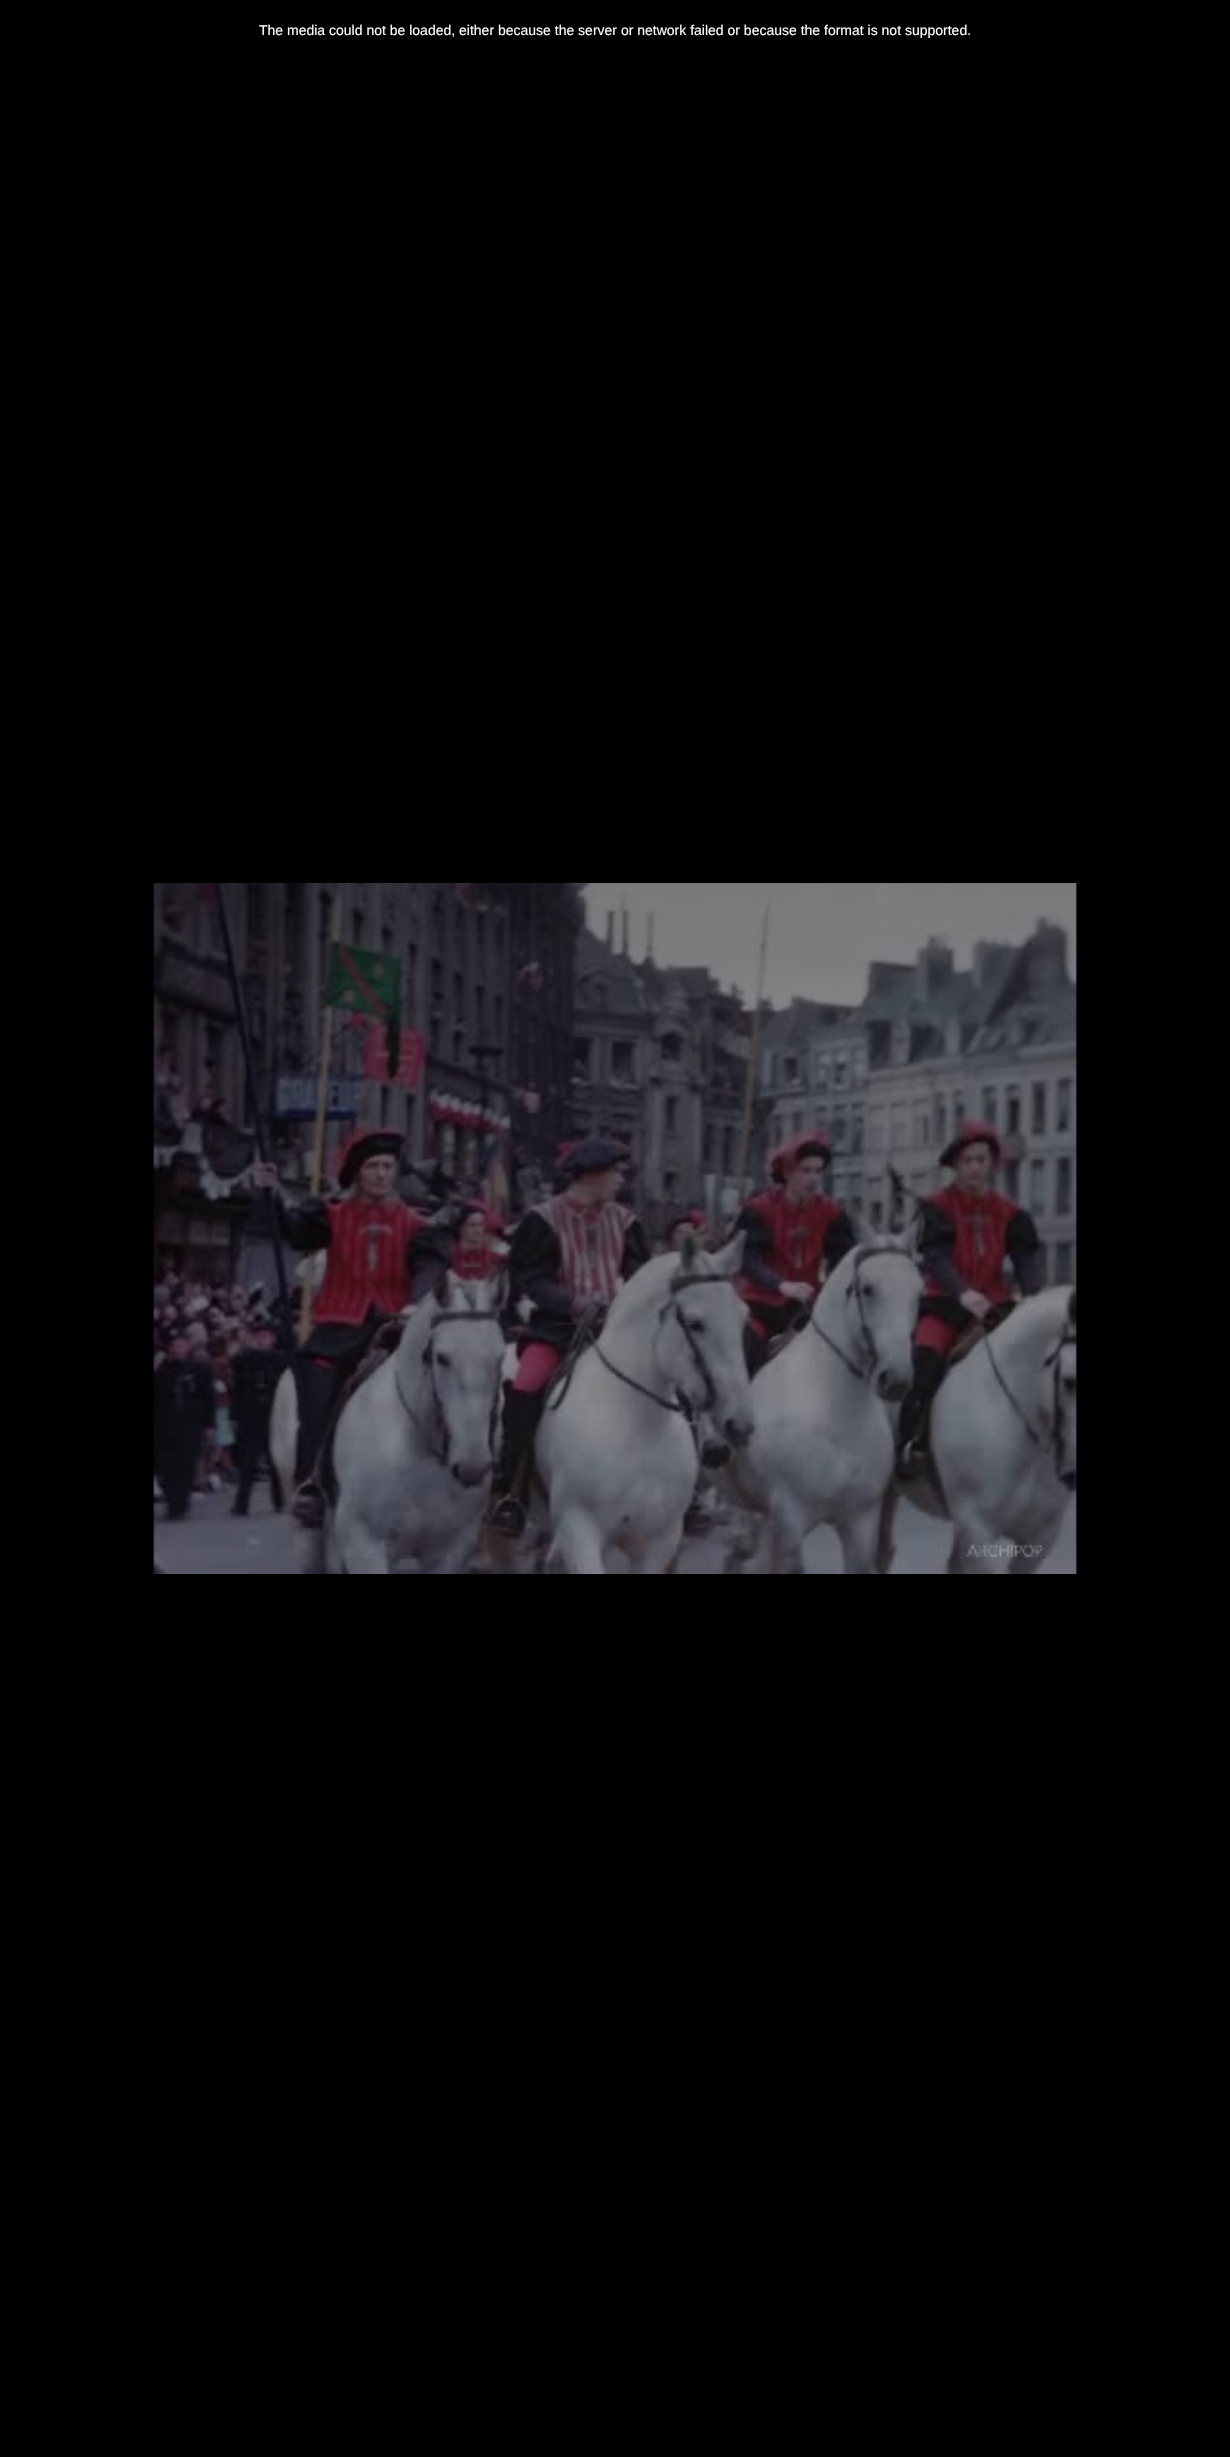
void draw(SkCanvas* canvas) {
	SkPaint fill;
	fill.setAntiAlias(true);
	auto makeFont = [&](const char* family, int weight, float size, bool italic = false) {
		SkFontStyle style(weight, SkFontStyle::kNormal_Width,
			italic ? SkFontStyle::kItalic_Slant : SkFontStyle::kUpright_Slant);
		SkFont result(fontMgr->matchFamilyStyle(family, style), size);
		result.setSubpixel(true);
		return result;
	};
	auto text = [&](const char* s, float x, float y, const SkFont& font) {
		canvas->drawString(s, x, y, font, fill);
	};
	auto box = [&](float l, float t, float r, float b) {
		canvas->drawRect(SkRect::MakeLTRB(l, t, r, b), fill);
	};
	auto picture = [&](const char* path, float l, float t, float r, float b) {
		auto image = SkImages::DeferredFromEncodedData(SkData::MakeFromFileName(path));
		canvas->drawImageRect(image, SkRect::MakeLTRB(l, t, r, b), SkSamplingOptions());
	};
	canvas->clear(0xFF000000);
	picture("image0.png", 152, 883, 1082, 1574);
	{
		const SkColor colors[] = {0xCC000000, 0x00000000};
		const float stops[] = {0, 1};
		const SkPoint ends[] = {{615, 0}, {615, 2457}};
		fill.setShader(SkGradientShader::MakeLinear(ends, colors, stops, 2, SkTileMode::kClamp));
		fill.setAlpha(255);
	}
	box(153, 883, 1079, 1574);
	auto font1 = makeFont("Liberation Sans", 400, 14);
	fill.setShader(nullptr);
	fill.setColor(0xFFFFFFFF);
	text("The media could not be loaded, either because the server or network failed or because the format is not supported.", 259, 35, font1);
}
